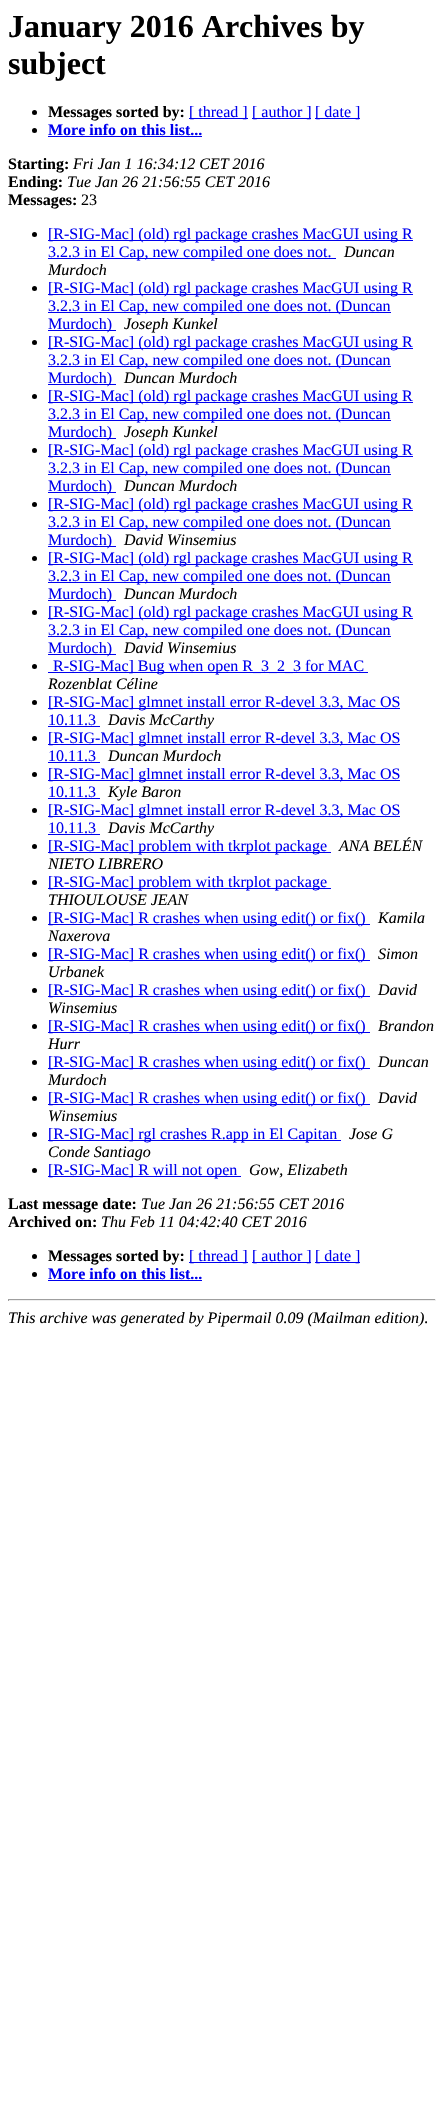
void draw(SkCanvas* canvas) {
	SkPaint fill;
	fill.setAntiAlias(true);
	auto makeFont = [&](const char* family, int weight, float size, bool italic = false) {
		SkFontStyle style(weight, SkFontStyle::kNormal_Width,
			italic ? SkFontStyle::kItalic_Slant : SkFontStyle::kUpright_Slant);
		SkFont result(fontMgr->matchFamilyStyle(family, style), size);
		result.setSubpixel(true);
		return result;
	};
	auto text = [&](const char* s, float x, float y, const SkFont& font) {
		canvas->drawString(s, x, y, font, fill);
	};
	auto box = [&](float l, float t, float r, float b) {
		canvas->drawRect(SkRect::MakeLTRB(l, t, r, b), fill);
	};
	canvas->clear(0xFFFFFFFF);
	fill.setColor(0xFF000000);
	canvas->drawCircle(34.5f, 112.5f, 2.5f, fill);
	fill.setColor(0xFF0000EE);
	box(189, 118, 248, 119);
	box(252, 118, 311, 119);
	box(315, 118, 360, 119);
	fill.setColor(0xFF000000);
	canvas->drawCircle(34.5f, 130.5f, 2.5f, fill);
	fill.setColor(0xFF0000EE);
	box(48, 136, 202, 137);
	fill.setColor(0xFF000000);
	canvas->drawCircle(34.5f, 234.5f, 2.5f, fill);
	fill.setColor(0xFF0000EE);
	box(48, 240, 413, 241);
	box(48, 258, 336, 259);
	fill.setColor(0xFF000000);
	canvas->drawCircle(34.5f, 288.5f, 2.5f, fill);
	fill.setColor(0xFF0000EE);
	box(48, 294, 413, 295);
	box(48, 312, 391, 313);
	box(48, 330, 116, 331);
	fill.setColor(0xFF000000);
	canvas->drawCircle(34.5f, 342.5f, 2.5f, fill);
	fill.setColor(0xFF0000EE);
	box(48, 348, 413, 349);
	box(48, 366, 391, 367);
	box(48, 384, 116, 385);
	fill.setColor(0xFF000000);
	canvas->drawCircle(34.5f, 396.5f, 2.5f, fill);
	fill.setColor(0xFF0000EE);
	box(48, 402, 413, 403);
	box(48, 420, 391, 421);
	box(48, 438, 116, 439);
	fill.setColor(0xFF000000);
	canvas->drawCircle(34.5f, 450.5f, 2.5f, fill);
	fill.setColor(0xFF0000EE);
	box(48, 456, 413, 457);
	box(48, 474, 391, 475);
	box(48, 492, 116, 493);
	fill.setColor(0xFF000000);
	canvas->drawCircle(34.5f, 504.5f, 2.5f, fill);
	fill.setColor(0xFF0000EE);
	box(48, 510, 413, 511);
	box(48, 528, 391, 529);
	box(48, 546, 116, 547);
	fill.setColor(0xFF000000);
	canvas->drawCircle(34.5f, 558.5f, 2.5f, fill);
	fill.setColor(0xFF0000EE);
	box(48, 564, 413, 565);
	box(48, 582, 391, 583);
	box(48, 600, 116, 601);
	fill.setColor(0xFF000000);
	canvas->drawCircle(34.5f, 612.5f, 2.5f, fill);
	fill.setColor(0xFF0000EE);
	box(48, 618, 413, 619);
	box(48, 636, 391, 637);
	box(48, 654, 116, 655);
	fill.setColor(0xFF000000);
	canvas->drawCircle(34.5f, 666.5f, 2.5f, fill);
	fill.setColor(0xFF0000EE);
	box(48, 672, 368, 673);
	fill.setColor(0xFF000000);
	canvas->drawCircle(34.5f, 702.5f, 2.5f, fill);
	fill.setColor(0xFF0000EE);
	box(48, 708, 400, 709);
	box(48, 726, 100, 727);
	fill.setColor(0xFF000000);
	canvas->drawCircle(34.5f, 738.5f, 2.5f, fill);
	fill.setColor(0xFF0000EE);
	box(48, 744, 400, 745);
	box(48, 762, 100, 763);
	fill.setColor(0xFF000000);
	canvas->drawCircle(34.5f, 774.5f, 2.5f, fill);
	fill.setColor(0xFF0000EE);
	box(48, 780, 400, 781);
	box(48, 798, 100, 799);
	fill.setColor(0xFF000000);
	canvas->drawCircle(34.5f, 810.5f, 2.5f, fill);
	fill.setColor(0xFF0000EE);
	box(48, 816, 400, 817);
	box(48, 834, 100, 835);
	fill.setColor(0xFF000000);
	canvas->drawCircle(34.5f, 846.5f, 2.5f, fill);
	fill.setColor(0xFF0000EE);
	box(48, 852, 331, 853);
	fill.setColor(0xFF000000);
	canvas->drawCircle(34.5f, 882.5f, 2.5f, fill);
	fill.setColor(0xFF0000EE);
	box(48, 888, 331, 889);
	fill.setColor(0xFF000000);
	canvas->drawCircle(34.5f, 918.5f, 2.5f, fill);
	fill.setColor(0xFF0000EE);
	box(48, 924, 370, 925);
	fill.setColor(0xFF000000);
	canvas->drawCircle(34.5f, 954.5f, 2.5f, fill);
	fill.setColor(0xFF0000EE);
	box(48, 960, 370, 961);
	fill.setColor(0xFF000000);
	canvas->drawCircle(34.5f, 990.5f, 2.5f, fill);
	fill.setColor(0xFF0000EE);
	box(48, 996, 370, 997);
	fill.setColor(0xFF000000);
	canvas->drawCircle(34.5f, 1026.5f, 2.5f, fill);
	fill.setColor(0xFF0000EE);
	box(48, 1032, 370, 1033);
	fill.setColor(0xFF000000);
	canvas->drawCircle(34.5f, 1062.5f, 2.5f, fill);
	fill.setColor(0xFF0000EE);
	box(48, 1068, 370, 1069);
	fill.setColor(0xFF000000);
	canvas->drawCircle(34.5f, 1098.5f, 2.5f, fill);
	fill.setColor(0xFF0000EE);
	box(48, 1104, 370, 1105);
	fill.setColor(0xFF000000);
	canvas->drawCircle(34.5f, 1134.5f, 2.5f, fill);
	fill.setColor(0xFF0000EE);
	box(48, 1140, 341, 1141);
	fill.setColor(0xFF000000);
	canvas->drawCircle(34.5f, 1170.5f, 2.5f, fill);
	fill.setColor(0xFF0000EE);
	box(48, 1176, 241, 1177);
	fill.setColor(0xFF000000);
	canvas->drawCircle(34.5f, 1256.5f, 2.5f, fill);
	fill.setColor(0xFF0000EE);
	box(189, 1262, 248, 1263);
	box(252, 1262, 311, 1263);
	box(315, 1262, 360, 1263);
	fill.setColor(0xFF000000);
	canvas->drawCircle(34.5f, 1274.5f, 2.5f, fill);
	fill.setColor(0xFF0000EE);
	box(48, 1280, 202, 1281);
	fill.setColor(0xFF9F9F9F);
	box(8, 1299, 436, 1300);
	fill.setColor(0xFFEEEEEE);
	box(435, 1299, 436, 1301);
	box(8, 1300, 436, 1301);
	fill.setColor(0xFF9F9F9F);
	box(8, 1299, 9, 1301);
	auto font1 = makeFont("Liberation Serif", 700, 32);
	fill.setColor(0xFF000000);
	text("January 2016 Archives by", 8, 37, font1);
	text("subject", 8, 74, font1);
	auto font2 = makeFont("Liberation Serif", 700, 16);
	text("Messages sorted by:", 48, 117, font2);
	auto font3 = makeFont("Liberation Serif", 400, 16);
	fill.setColor(0xFF0000EE);
	text("[ thread ]", 189, 117, font3);
	text("[ author ]", 252, 117, font3);
	text("[ date ]", 315, 117, font3);
	text("More info on this list...", 48, 135, font2);
	fill.setColor(0xFF000000);
	text("Starting:", 8, 169, font2);
	auto font4 = makeFont("Liberation Serif", 400, 16, true);
	text("Fri Jan 1 16:34:12 CET 2016", 73, 169, font4);
	text("Ending:", 8, 187, font2);
	text("Tue Jan 26 21:56:55 CET 2016", 67, 187, font4);
	text("Messages:", 8, 205, font2);
	text("23", 81, 205, font3);
	fill.setColor(0xFF0000EE);
	text("[R-SIG-Mac] (old) rgl package crashes MacGUI using R", 48, 239, font3);
	text("3.2.3 in El Cap, new compiled one does not.", 48, 257, font3);
	fill.setColor(0xFF000000);
	text("Duncan", 344, 257, font4);
	text("Murdoch", 48, 275, font4);
	fill.setColor(0xFF0000EE);
	text("[R-SIG-Mac] (old) rgl package crashes MacGUI using R", 48, 293, font3);
	text("3.2.3 in El Cap, new compiled one does not. (Duncan", 48, 311, font3);
	text("Murdoch)", 48, 329, font3);
	fill.setColor(0xFF000000);
	text("Joseph Kunkel", 124, 329, font4);
	fill.setColor(0xFF0000EE);
	text("[R-SIG-Mac] (old) rgl package crashes MacGUI using R", 48, 347, font3);
	text("3.2.3 in El Cap, new compiled one does not. (Duncan", 48, 365, font3);
	text("Murdoch)", 48, 383, font3);
	fill.setColor(0xFF000000);
	text("Duncan Murdoch", 124, 383, font4);
	fill.setColor(0xFF0000EE);
	text("[R-SIG-Mac] (old) rgl package crashes MacGUI using R", 48, 401, font3);
	text("3.2.3 in El Cap, new compiled one does not. (Duncan", 48, 419, font3);
	text("Murdoch)", 48, 437, font3);
	fill.setColor(0xFF000000);
	text("Joseph Kunkel", 124, 437, font4);
	fill.setColor(0xFF0000EE);
	text("[R-SIG-Mac] (old) rgl package crashes MacGUI using R", 48, 455, font3);
	text("3.2.3 in El Cap, new compiled one does not. (Duncan", 48, 473, font3);
	text("Murdoch)", 48, 491, font3);
	fill.setColor(0xFF000000);
	text("Duncan Murdoch", 124, 491, font4);
	fill.setColor(0xFF0000EE);
	text("[R-SIG-Mac] (old) rgl package crashes MacGUI using R", 48, 509, font3);
	text("3.2.3 in El Cap, new compiled one does not. (Duncan", 48, 527, font3);
	text("Murdoch)", 48, 545, font3);
	fill.setColor(0xFF000000);
	text("David Winsemius", 124, 545, font4);
	fill.setColor(0xFF0000EE);
	text("[R-SIG-Mac] (old) rgl package crashes MacGUI using R", 48, 563, font3);
	text("3.2.3 in El Cap, new compiled one does not. (Duncan", 48, 581, font3);
	text("Murdoch)", 48, 599, font3);
	fill.setColor(0xFF000000);
	text("Duncan Murdoch", 124, 599, font4);
	fill.setColor(0xFF0000EE);
	text("[R-SIG-Mac] (old) rgl package crashes MacGUI using R", 48, 617, font3);
	text("3.2.3 in El Cap, new compiled one does not. (Duncan", 48, 635, font3);
	text("Murdoch)", 48, 653, font3);
	fill.setColor(0xFF000000);
	text("David Winsemius", 124, 653, font4);
	fill.setColor(0xFF0000EE);
	text("R-SIG-Mac] Bug when open R_3_2_3 for MAC", 53, 671, font3);
	fill.setColor(0xFF000000);
	text("Rozenblat Céline", 48, 689, font4);
	fill.setColor(0xFF0000EE);
	text("[R-SIG-Mac] glmnet install error R-devel 3.3, Mac OS", 48, 707, font3);
	text("10.11.3", 48, 725, font3);
	fill.setColor(0xFF000000);
	text("Davis McCarthy", 108, 725, font4);
	fill.setColor(0xFF0000EE);
	text("[R-SIG-Mac] glmnet install error R-devel 3.3, Mac OS", 48, 743, font3);
	text("10.11.3", 48, 761, font3);
	fill.setColor(0xFF000000);
	text("Duncan Murdoch", 108, 761, font4);
	fill.setColor(0xFF0000EE);
	text("[R-SIG-Mac] glmnet install error R-devel 3.3, Mac OS", 48, 779, font3);
	text("10.11.3", 48, 797, font3);
	fill.setColor(0xFF000000);
	text("Kyle Baron", 108, 797, font4);
	fill.setColor(0xFF0000EE);
	text("[R-SIG-Mac] glmnet install error R-devel 3.3, Mac OS", 48, 815, font3);
	text("10.11.3", 48, 833, font3);
	fill.setColor(0xFF000000);
	text("Davis McCarthy", 108, 833, font4);
	fill.setColor(0xFF0000EE);
	text("[R-SIG-Mac] problem with tkrplot package", 48, 851, font3);
	fill.setColor(0xFF000000);
	text("ANA BELÉN", 339, 851, font4);
	text("NIETO LIBRERO", 48, 869, font4);
	fill.setColor(0xFF0000EE);
	text("[R-SIG-Mac] problem with tkrplot package", 48, 887, font3);
	fill.setColor(0xFF000000);
	text("THIOULOUSE JEAN", 48, 905, font4);
	fill.setColor(0xFF0000EE);
	text("[R-SIG-Mac] R crashes when using edit() or fix()", 48, 923, font3);
	fill.setColor(0xFF000000);
	text("Kamila", 378, 923, font4);
	text("Naxerova", 48, 941, font4);
	fill.setColor(0xFF0000EE);
	text("[R-SIG-Mac] R crashes when using edit() or fix()", 48, 959, font3);
	fill.setColor(0xFF000000);
	text("Simon", 378, 959, font4);
	text("Urbanek", 48, 977, font4);
	fill.setColor(0xFF0000EE);
	text("[R-SIG-Mac] R crashes when using edit() or fix()", 48, 995, font3);
	fill.setColor(0xFF000000);
	text("David", 378, 995, font4);
	text("Winsemius", 48, 1013, font4);
	fill.setColor(0xFF0000EE);
	text("[R-SIG-Mac] R crashes when using edit() or fix()", 48, 1031, font3);
	fill.setColor(0xFF000000);
	text("Brandon", 378, 1031, font4);
	text("Hurr", 48, 1049, font4);
	fill.setColor(0xFF0000EE);
	text("[R-SIG-Mac] R crashes when using edit() or fix()", 48, 1067, font3);
	fill.setColor(0xFF000000);
	text("Duncan", 378, 1067, font4);
	text("Murdoch", 48, 1085, font4);
	fill.setColor(0xFF0000EE);
	text("[R-SIG-Mac] R crashes when using edit() or fix()", 48, 1103, font3);
	fill.setColor(0xFF000000);
	text("David", 378, 1103, font4);
	text("Winsemius", 48, 1121, font4);
	fill.setColor(0xFF0000EE);
	text("[R-SIG-Mac] rgl crashes R.app in El Capitan", 48, 1139, font3);
	fill.setColor(0xFF000000);
	text("Jose G", 349, 1139, font4);
	text("Conde Santiago", 48, 1157, font4);
	fill.setColor(0xFF0000EE);
	text("[R-SIG-Mac] R will not open", 48, 1175, font3);
	fill.setColor(0xFF000000);
	text("Gow, Elizabeth", 249, 1175, font4);
	text("Last message date:", 8, 1209, font2);
	text("Tue Jan 26 21:56:55 CET 2016", 141, 1209, font4);
	text("Archived on:", 8, 1227, font2);
	text("Thu Feb 11 04:42:40 CET 2016", 101, 1227, font4);
	text("Messages sorted by:", 48, 1261, font2);
	fill.setColor(0xFF0000EE);
	text("[ thread ]", 189, 1261, font3);
	text("[ author ]", 252, 1261, font3);
	text("[ date ]", 315, 1261, font3);
	text("More info on this list...", 48, 1279, font2);
	fill.setColor(0xFF000000);
	text("This archive was generated by Pipermail 0.09 (Mailman edition).", 8, 1323, font4);
}
